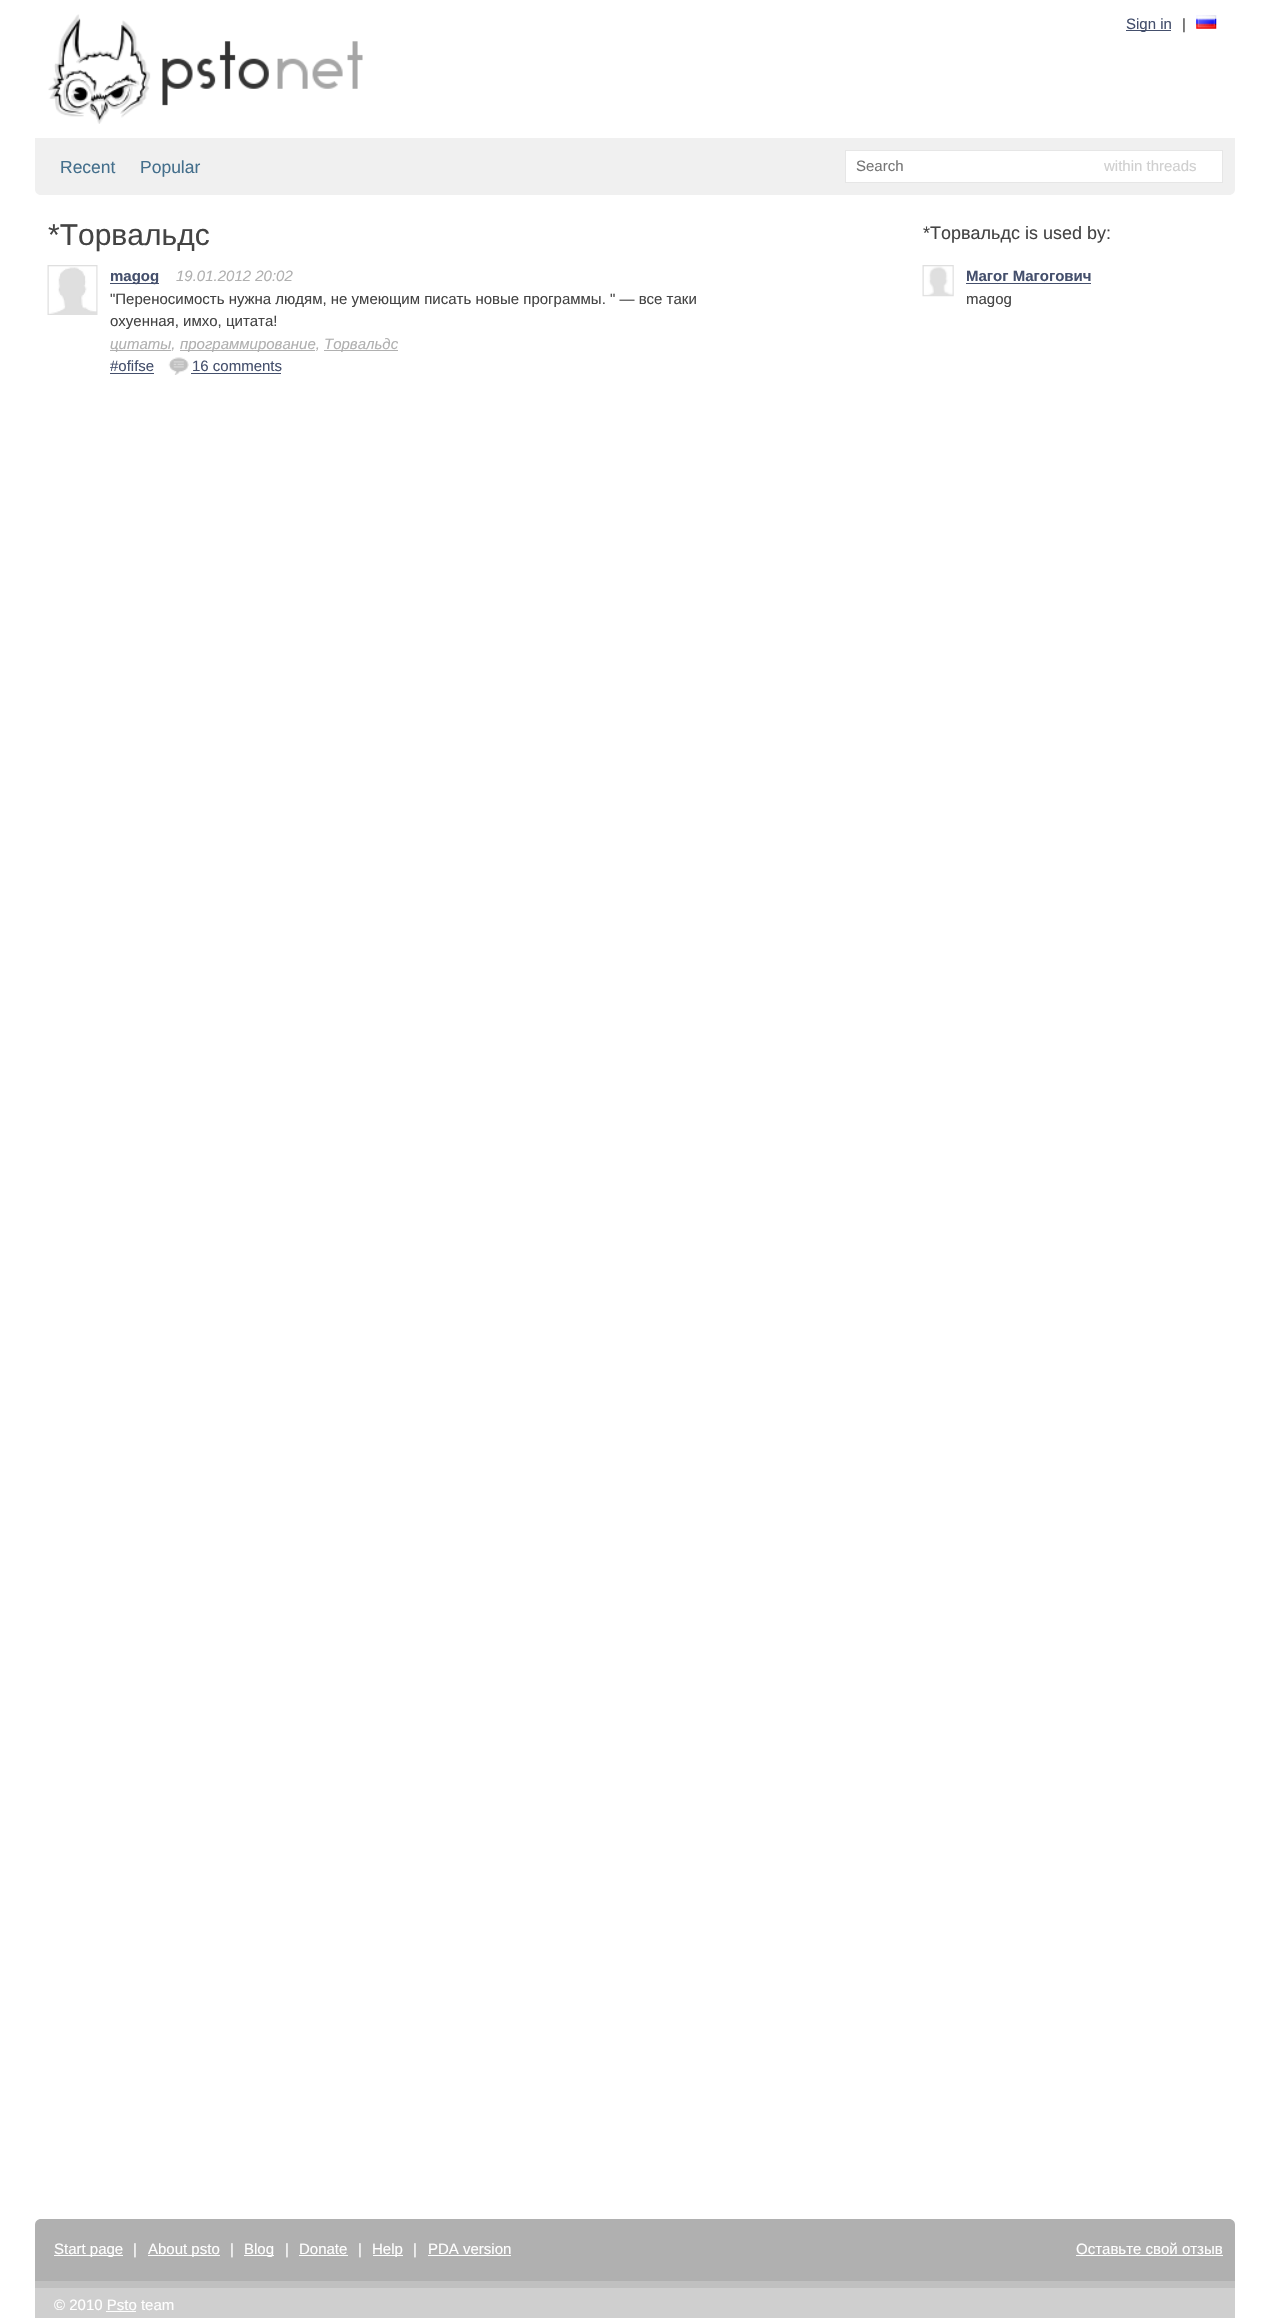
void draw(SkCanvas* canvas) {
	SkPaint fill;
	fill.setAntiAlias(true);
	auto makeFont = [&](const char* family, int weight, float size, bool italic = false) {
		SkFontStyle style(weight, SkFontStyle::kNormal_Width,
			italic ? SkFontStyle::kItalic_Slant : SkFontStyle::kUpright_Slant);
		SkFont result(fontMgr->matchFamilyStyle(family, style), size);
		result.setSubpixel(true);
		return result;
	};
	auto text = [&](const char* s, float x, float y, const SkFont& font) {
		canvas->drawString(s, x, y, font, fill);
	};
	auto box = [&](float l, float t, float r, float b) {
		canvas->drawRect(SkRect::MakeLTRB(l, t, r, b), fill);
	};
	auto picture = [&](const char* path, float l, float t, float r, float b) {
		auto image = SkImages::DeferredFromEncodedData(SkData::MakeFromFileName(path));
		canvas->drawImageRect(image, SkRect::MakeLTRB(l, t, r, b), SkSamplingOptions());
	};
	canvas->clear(0xFFFFFFFF);
	picture("image0.png", 48, 14, 363, 124);
	fill.setColor(0xFF444F6C);
	box(1126, 30, 1171, 31);
	picture("image1.png", 1196, 15, 1217, 29);
	fill.setColor(0xFFF0F0F0);
	canvas->drawPath(SkPathBuilder().moveTo(35, 138).lineTo(1235, 138).lineTo(1235, 189).cubicTo(1235, 192.5f, 1232.5f, 195, 1229, 195).lineTo(41, 195).cubicTo(37.5f, 195, 35, 192.5f, 35, 189).close().detach(), fill);
	fill.setColor(0xFFFFFFFF);
	canvas->drawRect(SkRect::MakeLTRB(845.5f, 150.5f, 1222.5f, 182.5f), fill);
	fill.setStyle(SkPaint::kStroke_Style);
	fill.setStrokeWidth(1);
	fill.setColor(0xFFE6E6E6);
	canvas->drawRect(SkRect::MakeLTRB(845.5f, 150.5f, 1222.5f, 182.5f), fill);
	picture("image2.png", 47, 265, 98, 315);
	fill.setStyle(SkPaint::kFill_Style);
	fill.setColor(0xFF444F6C);
	box(110, 283, 159, 284);
	fill.setColor(0xFFB0B0B0);
	box(110, 350, 171, 351);
	box(180, 350, 315, 351);
	box(324, 350, 398, 351);
	fill.setColor(0xFF444F6C);
	box(110, 373, 154, 374);
	picture("image3.png", 168, 357, 189, 375);
	box(191, 373, 281, 374);
	picture("image4.png", 922, 265, 954, 297);
	box(966, 283, 1091, 284);
	fill.setColor(0xFFB0B0B0);
	canvas->drawPath(SkPathBuilder().moveTo(41, 2219).lineTo(1229, 2219).cubicTo(1232.5f, 2219, 1235, 2221.5f, 1235, 2225).lineTo(1235, 2281).lineTo(35, 2281).lineTo(35, 2225).cubicTo(35, 2221.5f, 37.5f, 2219, 41, 2219).close().detach(), fill);
	fill.setColor(0xFFFFFFFF);
	box(54, 2255, 123, 2256);
	box(148, 2255, 220, 2256);
	box(244, 2255, 274, 2256);
	box(299, 2255, 348, 2256);
	box(373, 2255, 403, 2256);
	box(428, 2255, 511, 2256);
	box(1076, 2255, 1223, 2256);
	fill.setColor(0xFFCFCFCF);
	box(35, 2288, 1235, 2318);
	fill.setColor(0xFFC0C0C0);
	box(35, 2281, 1235, 2288);
	fill.setColor(0xFFFFFFFF);
	box(106, 2311, 136, 2312);
	auto font1 = makeFont("Liberation Sans", 400, 15);
	fill.setColor(0xFF444F6C);
	text("Sign in", 1126, 29, font1);
	fill.setColor(0xFF444444);
	text("|", 1182, 29, font1);
	auto font2 = makeFont("Liberation Sans", 400, 17.5f);
	fill.setColor(0xFF446F8C);
	text("Recent", 60, 173, font2);
	text("Popular", 140, 173, font2);
	fill.setColor(0xFF757575);
	text("Search", 856, 171, font1);
	fill.setColor(0xFFCFCFCF);
	text("within threads", 1104, 171, font1);
	auto font3 = makeFont("Liberation Sans", 400, 30);
	fill.setColor(0xFF444444);
	text("*Торвальдс", 48, 245, font3);
	auto font4 = makeFont("Liberation Sans", 700, 15);
	fill.setColor(0xFF444F6C);
	text("magog", 110, 281, font4);
	auto font5 = makeFont("Liberation Sans", 400, 15, true);
	fill.setColor(0xFFB0B0B0);
	text("19.01.2012 20:02", 176, 281, font5);
	fill.setColor(0xFF444444);
	text("\"Переносимость нужна людям, не умеющим писать новые программы. \" — все таки", 110, 304, font1);
	text("охуенная, имхо, цитата!", 110, 326, font1);
	fill.setColor(0xFFB0B0B0);
	text("цитаты,", 110, 349, font5);
	text("программирование,", 180, 349, font5);
	text("Торвальдс", 324, 349, font5);
	fill.setColor(0xFF444F6C);
	text("#ofifse", 110, 371, font1);
	text("16 comments", 192, 371, font1);
	auto font6 = makeFont("Liberation Sans", 400, 18);
	fill.setColor(0xFF444444);
	text("*Торвальдс is used by:", 923, 239, font6);
	fill.setColor(0xFF444F6C);
	text("Mагог Магогович", 966, 281, font4);
	fill.setColor(0xFF444444);
	text("magog", 966, 304, font1);
	fill.setColor(0xFFFFFFFF);
	text("Start page", 54, 2254, font1);
	text("|", 133, 2254, font1);
	text("About psto", 148, 2254, font1);
	text("|", 230, 2254, font1);
	text("Blog", 244, 2254, font1);
	text("|", 285, 2254, font1);
	text("Donate", 299, 2254, font1);
	text("|", 358, 2254, font1);
	text("Help", 372, 2254, font1);
	text("|", 413, 2254, font1);
	text("PDA version", 428, 2254, font1);
	text("Оставьте свой отзыв", 1076, 2254, font1);
	text("© 2010 Psto team", 54, 2310, font1);
}
